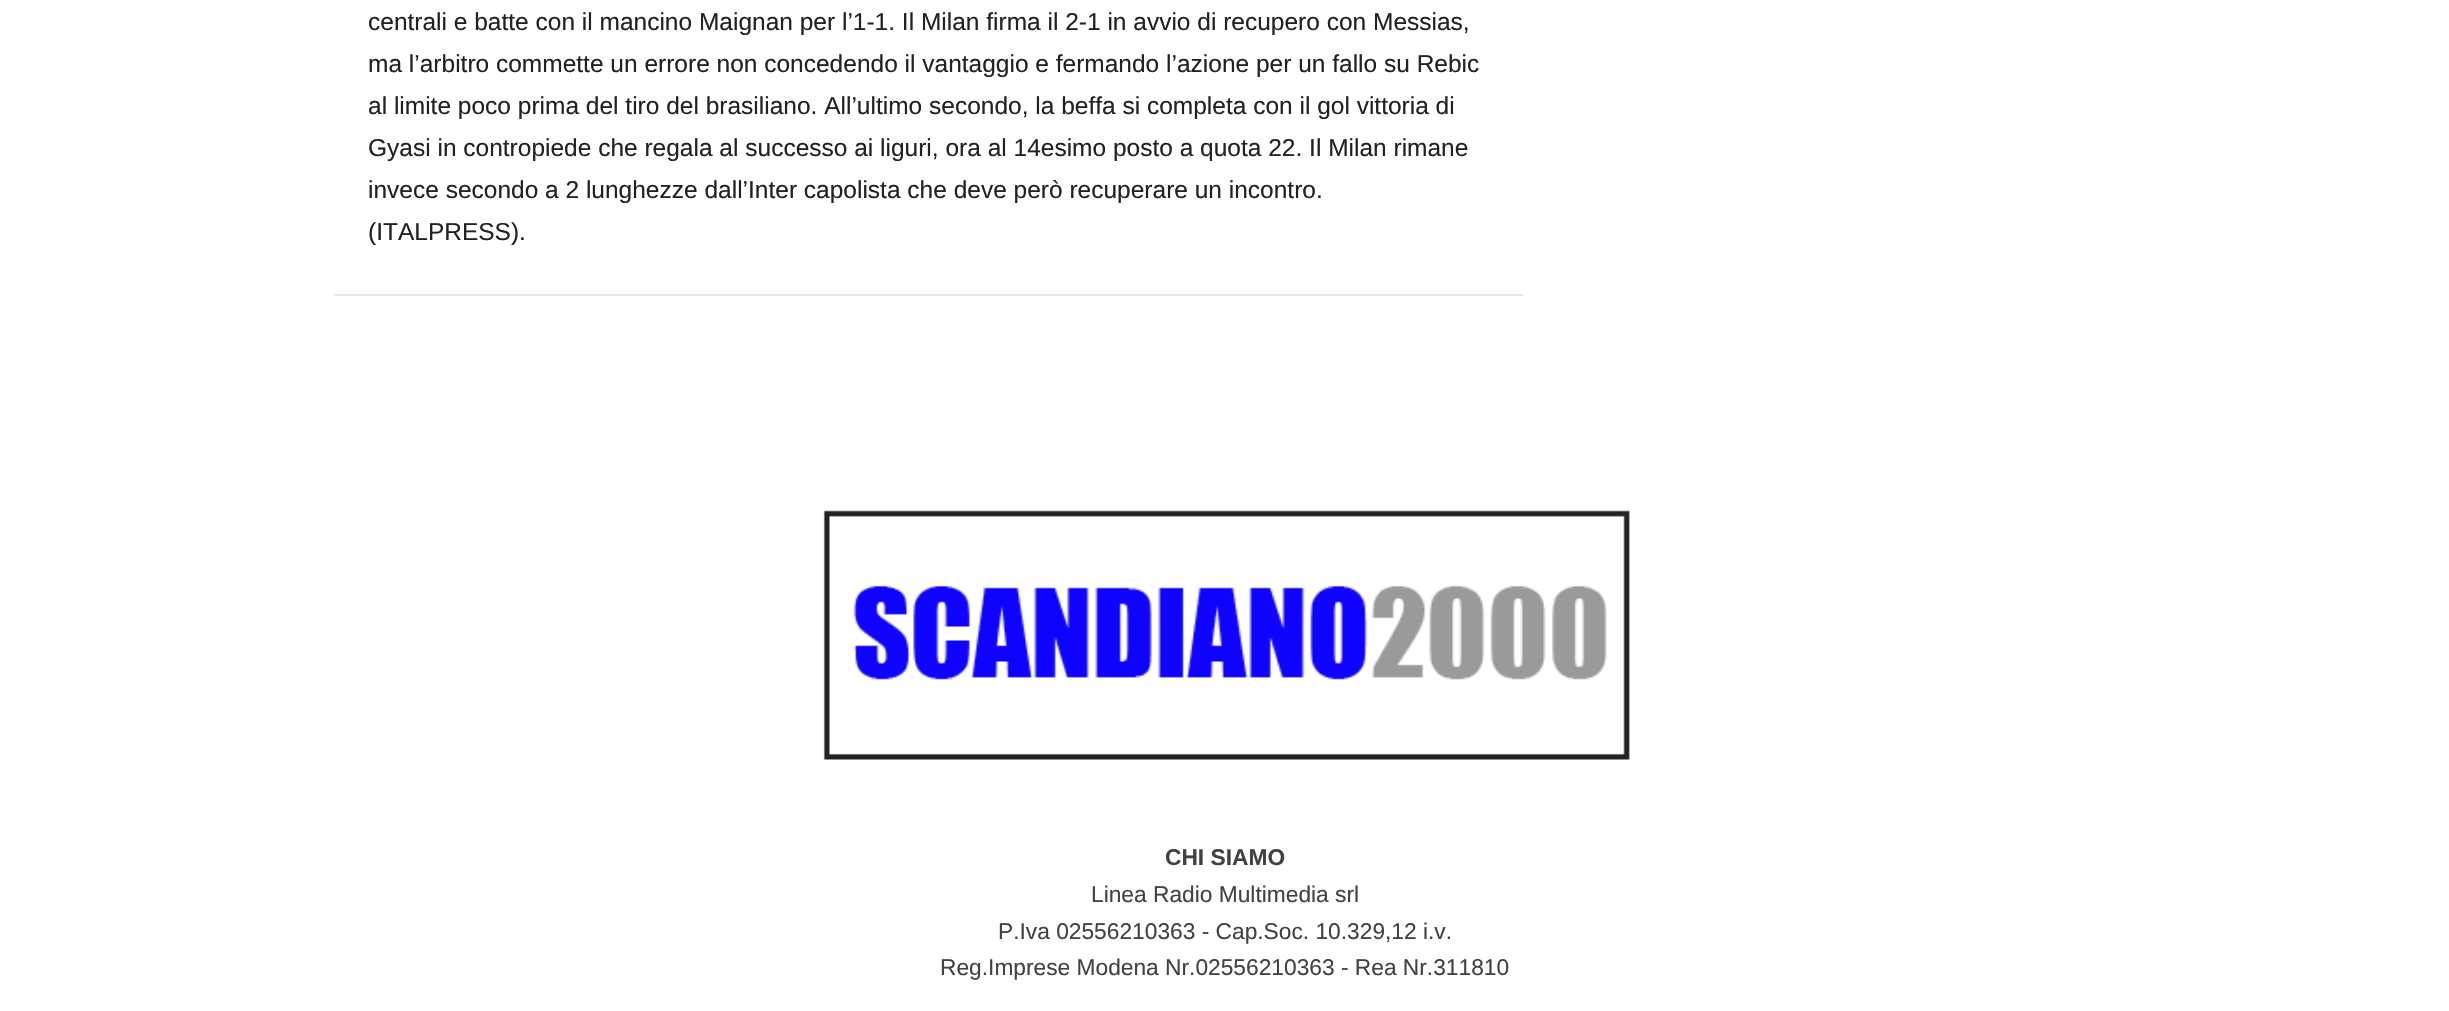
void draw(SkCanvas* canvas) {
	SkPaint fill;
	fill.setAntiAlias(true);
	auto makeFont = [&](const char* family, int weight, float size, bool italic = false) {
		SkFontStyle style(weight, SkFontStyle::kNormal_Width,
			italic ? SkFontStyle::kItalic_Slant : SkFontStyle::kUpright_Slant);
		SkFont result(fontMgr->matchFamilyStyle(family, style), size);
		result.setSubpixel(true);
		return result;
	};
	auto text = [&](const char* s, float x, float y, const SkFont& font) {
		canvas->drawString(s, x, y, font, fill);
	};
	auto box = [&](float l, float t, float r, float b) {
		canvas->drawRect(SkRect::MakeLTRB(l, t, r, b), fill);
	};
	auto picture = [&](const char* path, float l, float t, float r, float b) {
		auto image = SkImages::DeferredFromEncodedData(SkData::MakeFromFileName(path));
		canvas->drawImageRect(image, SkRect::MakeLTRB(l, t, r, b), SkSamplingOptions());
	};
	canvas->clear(0xFFFFFFFF);
	fill.setColor(0xFFE6E6E6);
	box(334, 294, 1523, 296);
	picture("image0.png", 823, 510, 1630, 760);
	auto font1 = makeFont("Liberation Sans", 400, 24.5f);
	fill.setColor(0xFF222222);
	text("centrali e batte con il mancino Maignan per l’1-1. Il Milan firma il 2-1 in avvio di recupero con Messias,", 368, 30, font1);
	text("ma l’arbitro commette un errore non concedendo il vantaggio e fermando l’azione per un fallo su Rebic", 368, 72, font1);
	text("al limite poco prima del tiro del brasiliano. All’ultimo secondo, la beffa si completa con il gol vittoria di", 368, 114, font1);
	text("Gyasi in contropiede che regala al successo ai liguri, ora al 14esimo posto a quota 22. Il Milan rimane", 368, 156, font1);
	text("invece secondo a 2 lunghezze dall’Inter capolista che deve però recuperare un incontro.", 368, 198, font1);
	text("(ITALPRESS).", 368, 240, font1);
	auto font2 = makeFont("Liberation Sans", 700, 22.75f);
	fill.setColor(0xFF424242);
	text("CHI SIAMO", 1165, 865, font2);
	auto font3 = makeFont("Liberation Sans", 400, 22.75f);
	text("Linea Radio Multimedia srl", 1091, 902, font3);
	text("P.Iva 02556210363 - Cap.Soc. 10.329,12 i.v.", 998, 939, font3);
	text("Reg.Imprese Modena Nr.02556210363 - Rea Nr.311810", 940, 975, font3);
}
